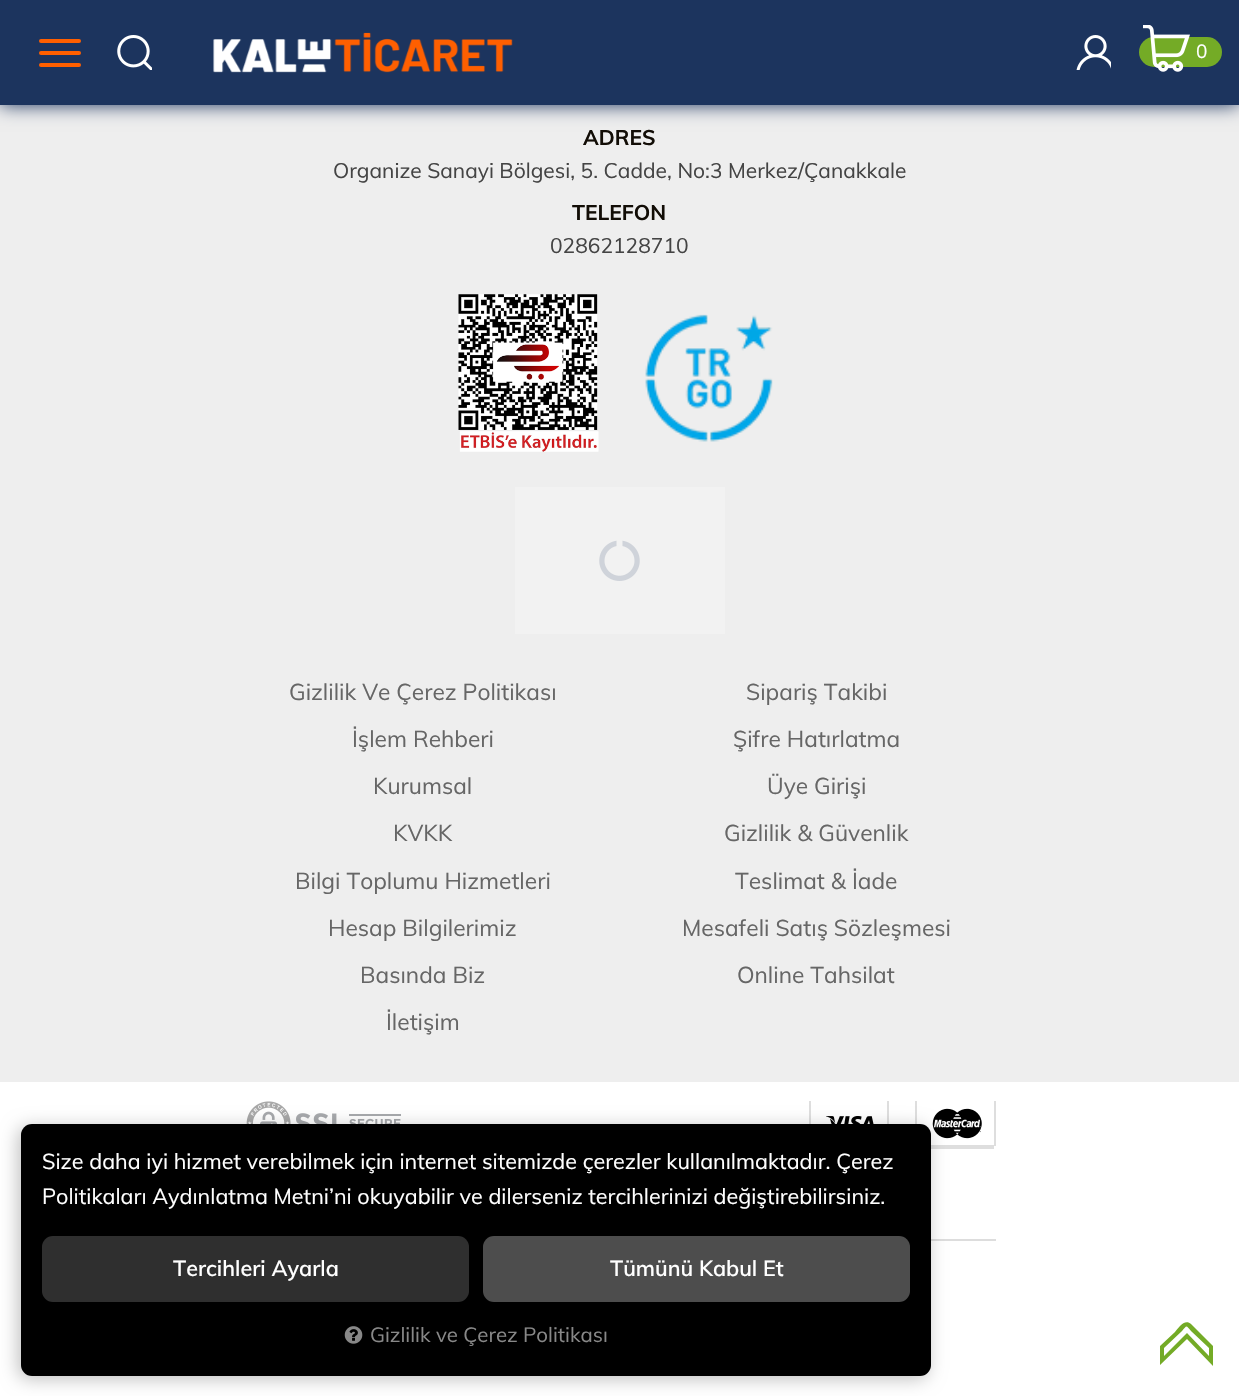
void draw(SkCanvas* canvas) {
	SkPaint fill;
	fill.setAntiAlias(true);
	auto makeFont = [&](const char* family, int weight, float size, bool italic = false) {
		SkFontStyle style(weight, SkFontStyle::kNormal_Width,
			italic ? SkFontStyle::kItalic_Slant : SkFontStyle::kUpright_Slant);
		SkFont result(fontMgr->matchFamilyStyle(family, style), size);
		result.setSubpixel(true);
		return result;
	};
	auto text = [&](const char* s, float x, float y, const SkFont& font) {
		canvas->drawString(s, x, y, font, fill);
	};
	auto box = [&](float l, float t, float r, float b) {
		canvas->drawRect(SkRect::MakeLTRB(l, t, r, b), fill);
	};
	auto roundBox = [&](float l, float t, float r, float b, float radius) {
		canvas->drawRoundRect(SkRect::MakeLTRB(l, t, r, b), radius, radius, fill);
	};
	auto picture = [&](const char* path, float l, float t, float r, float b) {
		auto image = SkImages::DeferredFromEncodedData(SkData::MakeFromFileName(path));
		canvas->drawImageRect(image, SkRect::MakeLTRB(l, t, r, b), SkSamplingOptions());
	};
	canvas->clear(0xFFFFFFFF);
	fill.setColor(0xFFEEEEEE);
	box(0, 105, 1239, 1082);
	fill.setColor(0xFF1C345E);
	fill.setMaskFilter(SkMaskFilter::MakeBlur(kNormal_SkBlurStyle, 9));
	canvas->drawRect(SkRect::MakeLTRB(0, 0, 1239, 105), fill);
	fill.setMaskFilter(nullptr);
	box(0, 0, 1239, 105);
	fill.setColor(0xFFFF5F00);
	roundBox(39, 39, 81, 43, 2);
	roundBox(39, 51, 81, 55, 2);
	roundBox(39, 63, 81, 67, 2);
	picture("image0.png", 117, 35, 152, 70);
	picture("image1.png", 213, 32, 513, 73);
	picture("image2.png", 1076, 35, 1111, 70);
	fill.setColor(0xFF74AB26);
	roundBox(1139, 37, 1222, 67, 15);
	picture("image3.png", 1143, 25, 1190, 72);
	picture("image4.png", 458, 294, 599, 452);
	picture("image5.png", 645, 314, 773, 442);
	fill.setColor(0xFFF2F2F2);
	box(515, 487, 725, 634);
	picture("image6.png", 599, 540, 640, 581);
	picture("image7.png", 246, 1101, 401, 1124);
	fill.setColor(0xFFDEDEDE);
	box(887, 1101, 889, 1124);
	box(809, 1101, 811, 1124);
	picture("image8.png", 826, 1116, 874, 1124);
	box(994, 1101, 996, 1146);
	box(931, 1145, 994, 1149);
	box(915, 1101, 917, 1124);
	picture("image9.png", 932, 1108, 982, 1139);
	fill.setColor(0xFFDDDDDD);
	box(931, 1239, 996, 1241);
	fill.setColor(0x40000000);
	fill.setMaskFilter(SkMaskFilter::MakeBlur(kNormal_SkBlurStyle, 9));
	canvas->drawRoundRect(SkRect::MakeLTRB(18, 1127, 928, 1379), 11, 11, fill);
	fill.setMaskFilter(nullptr);
	fill.setColor(0xFF000000);
	roundBox(21, 1124, 931, 1376, 11);
	fill.setColor(0xFF2F2F2F);
	roundBox(42, 1236, 469, 1302, 11);
	fill.setColor(0xFF4D4D4D);
	roundBox(483, 1236, 910, 1302, 11);
	picture("image10.png", 344, 1326, 363, 1344);
	fill.setColor(0xFF74AB26);
	canvas->drawPath(SkPathBuilder().moveTo(1191, 1324).cubicTo(1185, 1318, 1178, 1328, 1175, 1332).lineTo(1160, 1346).lineTo(1160, 1365).lineTo(1187, 1339).lineTo(1213, 1366).lineTo(1213, 1346).close().moveTo(1209, 1356).lineTo(1187, 1333).lineTo(1164, 1356).lineTo(1164, 1348).lineTo(1182, 1331).cubicTo(1187, 1325, 1186, 1325, 1191, 1331).lineTo(1209, 1348).close().detach(), fill);
	auto font1 = makeFont("Muli", 400, 19);
	fill.setColor(0xFFFFFFFF);
	text("0", 1196, 58, font1);
	auto font2 = makeFont("Muli", 700, 21);
	fill.setColor(0xFF120D06);
	text("ADRES", 583, 145, font2);
	auto font3 = makeFont("Muli", 400, 21);
	fill.setColor(0xFF444444);
	text("Organize Sanayi Bölgesi, 5. Cadde, No:3 Merkez/Çanakkale", 333, 178, font3);
	fill.setColor(0xFF120D06);
	text("TELEFON", 572, 220, font2);
	fill.setColor(0xFF444444);
	text("02862128710", 550, 253, font3);
	auto font4 = makeFont("Muli", 400, 22.75f);
	fill.setColor(0xFF666666);
	text("Gizlilik Ve Çerez Politikası", 289, 700, font4);
	text("Sipariş Takibi", 746, 700, font4);
	text("İşlem Rehberi", 352, 747, font4);
	text("Şifre Hatırlatma", 733, 747, font4);
	text("Kurumsal", 373, 794, font4);
	text("Üye Girişi", 767, 794, font4);
	text("KVKK", 393, 841, font4);
	text("Gizlilik & Güvenlik", 724, 841, font4);
	text("Bilgi Toplumu Hizmetleri", 295, 889, font4);
	text("Teslimat & İade", 735, 889, font4);
	text("Hesap Bilgilerimiz", 328, 936, font4);
	text("Mesafeli Satış Sözleşmesi", 682, 936, font4);
	text("Basında Biz", 360, 983, font4);
	text("Online Tahsilat", 737, 983, font4);
	text("İletişim", 386, 1030, font4);
	auto font5 = makeFont("Muli", 400, 21.6f);
	fill.setColor(0xFFFFFFFF);
	text("Size daha iyi hizmet verebilmek için internet sitemizde çerezler kullanılmaktadır. Çerez", 42, 1169, font5);
	text("Politikaları Aydınlatma Metni’ni okuyabilir ve dilerseniz tercihlerinizi değiştirebilirsiniz.", 42, 1204, font5);
	auto font6 = makeFont("Muli", 600, 21.6f);
	text("Tercihleri Ayarla", 173, 1276, font6);
	text("Tümünü Kabul Et", 610, 1276, font6);
	auto font7 = makeFont("Muli", 400, 20.5f);
	fill.setColor(0xFF888888);
	text("Gizlilik ve Çerez Politikası", 370, 1342, font7);
}
